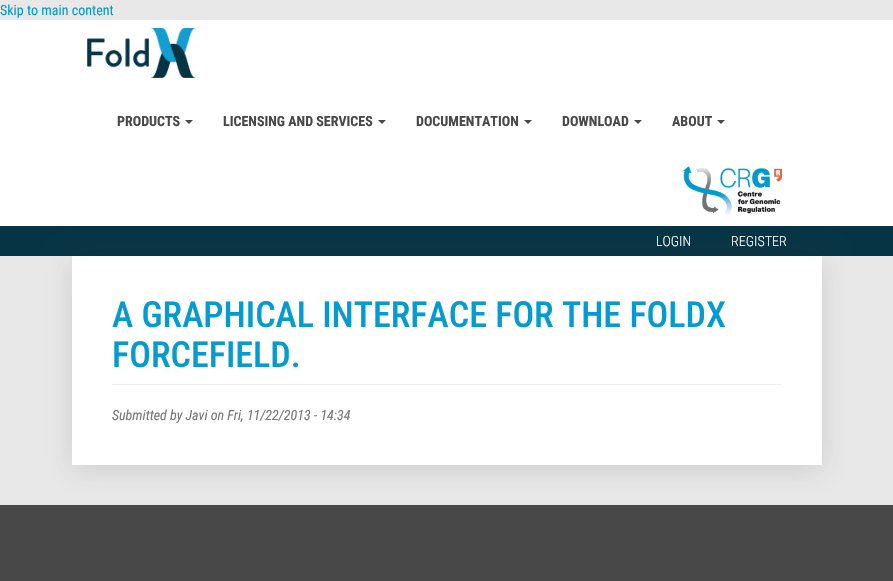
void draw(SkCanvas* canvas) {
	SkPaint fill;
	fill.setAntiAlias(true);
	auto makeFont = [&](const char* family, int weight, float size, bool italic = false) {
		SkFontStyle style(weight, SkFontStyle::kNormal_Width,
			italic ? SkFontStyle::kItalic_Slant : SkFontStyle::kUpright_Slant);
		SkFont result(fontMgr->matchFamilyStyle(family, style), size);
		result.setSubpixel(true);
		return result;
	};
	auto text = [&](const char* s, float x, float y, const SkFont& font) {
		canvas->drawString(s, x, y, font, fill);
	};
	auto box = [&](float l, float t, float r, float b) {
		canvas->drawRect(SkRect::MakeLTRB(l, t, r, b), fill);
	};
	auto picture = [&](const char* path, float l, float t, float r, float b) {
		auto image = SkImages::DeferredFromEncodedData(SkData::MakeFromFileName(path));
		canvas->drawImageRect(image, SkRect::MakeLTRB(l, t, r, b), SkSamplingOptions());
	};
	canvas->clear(0xFFE8E8E8);
	fill.setColor(0xFF073444);
	box(0, 226, 893, 256);
	fill.setColor(0x26323232);
	fill.setMaskFilter(SkMaskFilter::MakeBlur(kNormal_SkBlurStyle, 13.5f));
	canvas->drawRect(SkRect::MakeLTRB(72, 261, 822, 470), fill);
	fill.setMaskFilter(nullptr);
	fill.setColor(0xFFFFFFFF);
	box(0, 20, 893, 226);
	picture("image0.png", 87, 28, 196, 78);
	fill.setColor(0xFF484848);
	canvas->drawPath(SkPathBuilder().moveTo(185, 120).lineTo(193, 120).lineTo(189, 124).close().detach(), fill);
	canvas->drawPath(SkPathBuilder().moveTo(378, 120).lineTo(386, 120).lineTo(382, 124).close().detach(), fill);
	canvas->drawPath(SkPathBuilder().moveTo(524, 120).lineTo(532, 120).lineTo(528, 124).close().detach(), fill);
	canvas->drawPath(SkPathBuilder().moveTo(634, 120).lineTo(642, 120).lineTo(638, 124).close().detach(), fill);
	canvas->drawPath(SkPathBuilder().moveTo(717, 120).lineTo(725, 120).lineTo(721, 124).close().detach(), fill);
	picture("image1.png", 683, 166, 782, 215);
	fill.setColor(0xFFFFFFFF);
	box(72, 256, 822, 465);
	fill.setColor(0xFFEEEEEE);
	box(112, 384, 782, 385);
	fill.setColor(0xFF484848);
	box(0, 505, 893, 581);
	auto font1 = makeFont("Roboto Condensed", 400, 14);
	fill.setColor(0xFF049BD0);
	text("Skip to main content", 0, 15, font1);
	auto font2 = makeFont("Roboto Condensed", 700, 14);
	fill.setColor(0xFF484848);
	text("PRODUCTS", 117, 126, font2);
	text("LICENSING AND SERVICES", 223, 126, font2);
	text("DOCUMENTATION", 416, 126, font2);
	text("DOWNLOAD", 562, 126, font2);
	text("ABOUT", 672, 126, font2);
	auto font3 = makeFont("Roboto Condensed", 300, 14);
	fill.setColor(0xFFFFFFFF);
	text("LOGIN", 656, 246, font3);
	text("REGISTER", 731, 246, font3);
	auto font4 = makeFont("Roboto Condensed", 500, 36);
	fill.setColor(0xFF049BD0);
	text("A GRAPHICAL INTERFACE FOR THE FOLDX", 112, 327, font4);
	text("FORCEFIELD.", 112, 367, font4);
	auto font5 = makeFont("Roboto Condensed", 400, 14, true);
	fill.setColor(0xFF777777);
	text("Submitted by Javi on Fri, 11/22/2013 - 14:34", 112, 420, font5);
}
